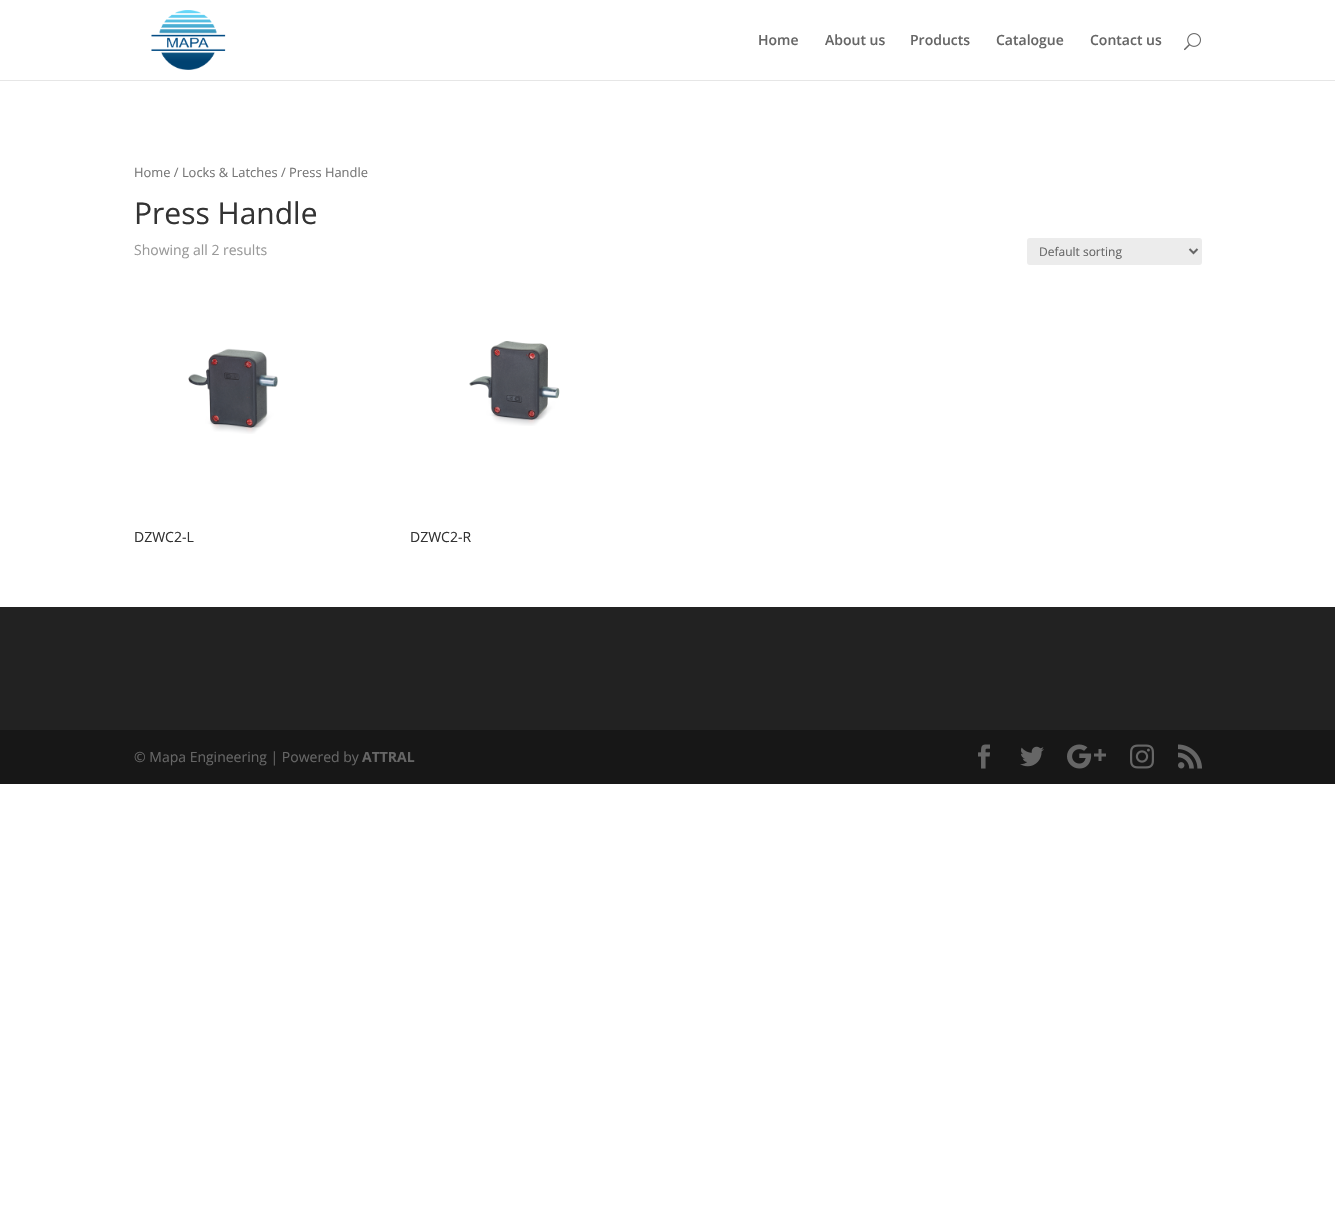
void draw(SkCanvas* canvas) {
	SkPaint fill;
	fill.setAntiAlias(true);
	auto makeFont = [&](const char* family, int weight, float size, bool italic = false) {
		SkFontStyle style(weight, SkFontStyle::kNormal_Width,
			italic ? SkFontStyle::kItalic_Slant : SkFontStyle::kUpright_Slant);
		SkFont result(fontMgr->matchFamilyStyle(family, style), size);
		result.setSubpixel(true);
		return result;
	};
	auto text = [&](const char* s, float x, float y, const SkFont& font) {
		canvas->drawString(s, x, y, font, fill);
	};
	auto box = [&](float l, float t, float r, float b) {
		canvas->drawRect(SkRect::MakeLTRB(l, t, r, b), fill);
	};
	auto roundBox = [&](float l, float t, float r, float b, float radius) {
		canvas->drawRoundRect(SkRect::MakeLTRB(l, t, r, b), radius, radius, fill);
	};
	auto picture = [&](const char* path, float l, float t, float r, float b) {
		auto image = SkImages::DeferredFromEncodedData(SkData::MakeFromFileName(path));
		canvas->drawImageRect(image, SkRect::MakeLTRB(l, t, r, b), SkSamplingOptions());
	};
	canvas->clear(0xFFFFFFFF);
	fill.setColor(0xFFE6E6E6);
	box(0, 80, 1335, 81);
	picture("image0.png", 151, 10, 226, 70);
	picture("image1.png", 1184, 33, 1201, 51);
	fill.setColor(0xFFECECEC);
	roundBox(1027, 238, 1202, 265, 3);
	fill.setStyle(SkPaint::kStroke_Style);
	fill.setStrokeWidth(2);
	fill.setColor(0xFF666666);
	canvas->drawPath(SkPathBuilder().moveTo(1189.5f, 249).lineTo(1193.5f, 253).lineTo(1197.5f, 249).detach(), fill);
	picture("image2.png", 188, 348, 278, 434);
	picture("image3.png", 469, 341, 560, 426);
	fill.setStyle(SkPaint::kFill_Style);
	fill.setColor(0xFF222222);
	box(0, 607, 1335, 730);
	fill.setColor(0xFF171717);
	box(0, 730, 1335, 784);
	picture("image4.png", 978, 744, 990, 769);
	picture("image5.png", 1020, 746, 1044, 767);
	picture("image6.png", 1067, 744, 1106, 769);
	picture("image7.png", 1130, 744, 1154, 769);
	picture("image8.png", 1178, 744, 1202, 769);
	auto font1 = makeFont("Open Sans", 600, 14);
	fill.setColor(0xFF666666);
	text("Home", 758, 45, font1);
	text("About us", 825, 45, font1);
	text("Products", 910, 45, font1);
	text("Catalogue", 996, 45, font1);
	text("Contact us", 1090, 45, font1);
	auto font2 = makeFont("Open Sans", 400, 12.9f);
	fill.setColor(0xFF767676);
	text("Home / Locks & Latches / Press Handle", 134, 177, font2);
	auto font3 = makeFont("Open Sans", 400, 30);
	fill.setColor(0xFF333333);
	text("Press Handle", 134, 224, font3);
	auto font4 = makeFont("Open Sans", 400, 14);
	fill.setColor(0xFF999999);
	text("Showing all 2 results", 134, 255, font4);
	auto font5 = makeFont("Open Sans", 400, 12);
	fill.setColor(0xFF666666);
	text("Default sorting", 1039, 256, font5);
	fill.setColor(0xFF333333);
	text("DZWC2-L", 134, 542, font4);
	text("DZWC2-R", 410, 542, font4);
	fill.setColor(0xFF666666);
	text("© Mapa Engineering | Powered by", 134, 762, font4);
	auto font6 = makeFont("Open Sans", 700, 14);
	text("ATTRAL", 362, 762, font6);
}
